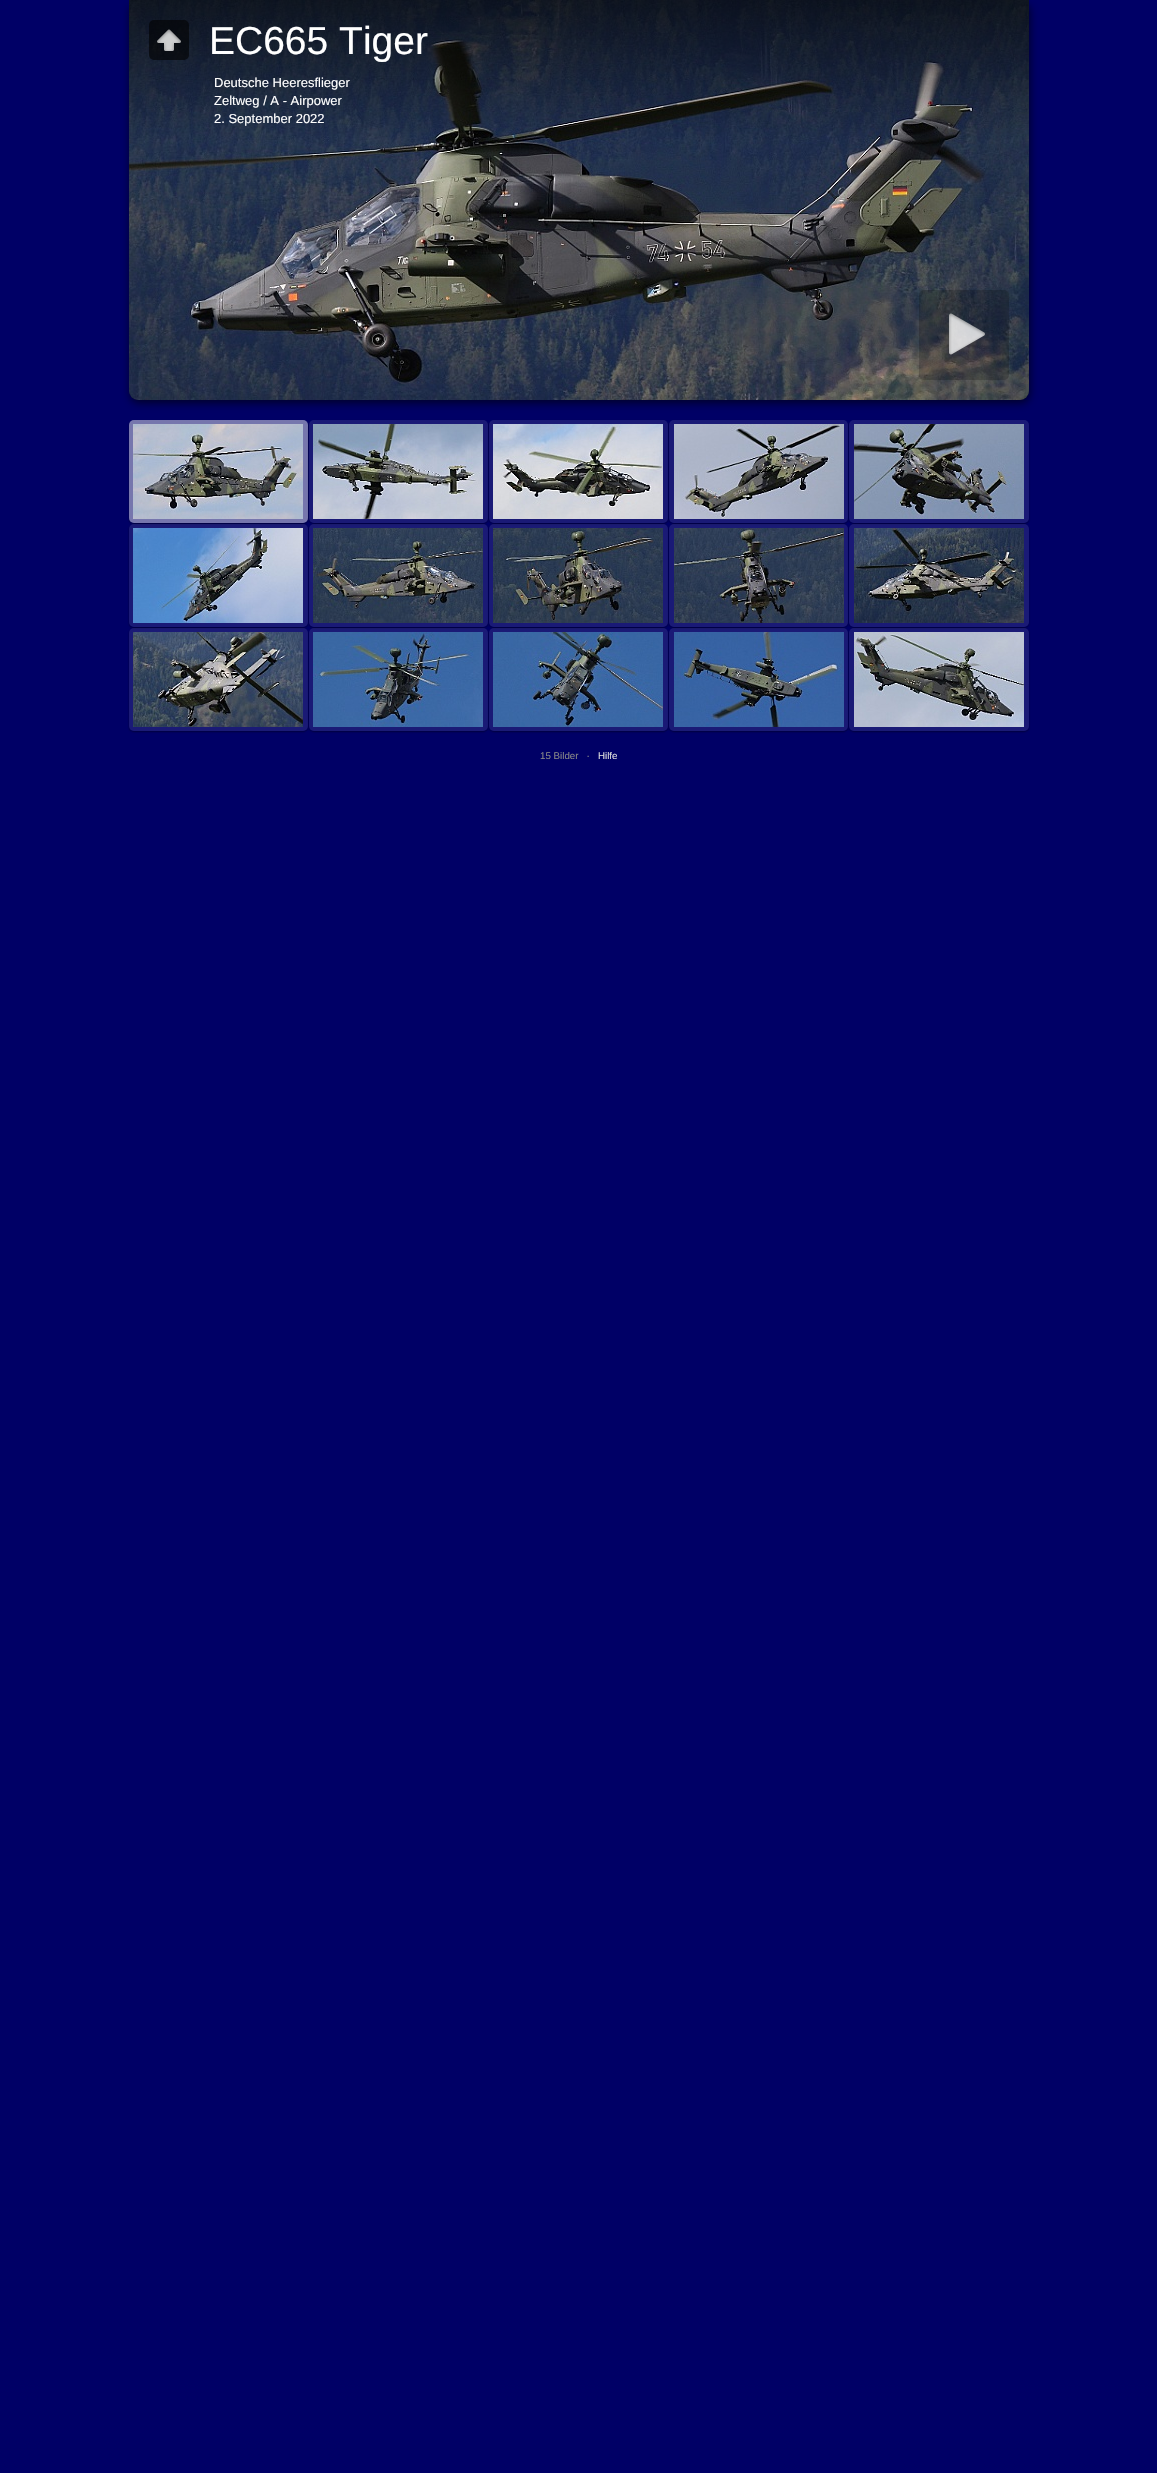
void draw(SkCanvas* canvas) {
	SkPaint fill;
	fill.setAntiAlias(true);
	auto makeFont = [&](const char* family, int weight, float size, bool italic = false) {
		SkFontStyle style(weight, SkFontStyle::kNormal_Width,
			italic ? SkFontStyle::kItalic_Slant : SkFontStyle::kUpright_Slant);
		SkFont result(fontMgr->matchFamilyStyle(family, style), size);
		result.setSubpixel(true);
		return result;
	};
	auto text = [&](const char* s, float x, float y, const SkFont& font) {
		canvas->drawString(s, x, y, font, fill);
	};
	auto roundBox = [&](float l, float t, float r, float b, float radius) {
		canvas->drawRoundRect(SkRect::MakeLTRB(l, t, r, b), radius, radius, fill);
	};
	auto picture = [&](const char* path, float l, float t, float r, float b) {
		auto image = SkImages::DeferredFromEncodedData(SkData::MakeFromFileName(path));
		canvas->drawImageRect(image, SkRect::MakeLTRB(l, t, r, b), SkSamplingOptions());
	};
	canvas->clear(0xFF000066);
	fill.setColor(0x99000000);
	fill.setMaskFilter(SkMaskFilter::MakeBlur(kNormal_SkBlurStyle, 4));
	canvas->drawRoundRect(SkRect::MakeLTRB(130, 3, 1030, 403), 9, 9, fill);
	fill.setMaskFilter(nullptr);
	fill.setColor(0x33000000);
	canvas->drawPath(SkPathBuilder().moveTo(129, 0).lineTo(1029, 0).lineTo(1029, 391).cubicTo(1029, 396, 1025, 400, 1020, 400).lineTo(138, 400).cubicTo(133, 400, 129, 396, 129, 391).close().detach(), fill);
	picture("image0.png", 129, 0, 1029, 400);
	fill.setColor(0x99000000);
	roundBox(149, 20, 189, 60, 5);
	picture("image1.png", 157, 29, 181, 51);
	fill.setColor(0x33000000);
	roundBox(919, 290, 1009, 380, 5);
	picture("image2.png", 949, 313, 985, 355);
	canvas->save();
	canvas->clipPath(SkPathBuilder(SkPathFillType::kEvenOdd).moveTo(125, 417).lineTo(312, 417).lineTo(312, 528).lineTo(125, 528).close().moveTo(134, 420).lineTo(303, 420).cubicTo(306, 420, 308, 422, 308, 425).lineTo(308, 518).cubicTo(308, 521, 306, 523, 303, 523).lineTo(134, 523).cubicTo(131, 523, 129, 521, 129, 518).lineTo(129, 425).cubicTo(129, 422, 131, 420, 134, 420).close().detach(), true);
	fill.setColor(0x66000000);
	fill.setMaskFilter(SkMaskFilter::MakeBlur(kNormal_SkBlurStyle, 1));
	canvas->drawRoundRect(SkRect::MakeLTRB(129, 421, 308, 524), 5, 5, fill);
	fill.setMaskFilter(nullptr);
	canvas->restore();
	fill.setColor(0x1AFFFFFF);
	roundBox(129, 420, 308, 523, 5);
	fill.setColor(0x66FFFFFF);
	roundBox(129, 420, 308, 523, 5);
	picture("image3.png", 133, 424, 303, 519);
	canvas->save();
	canvas->clipPath(SkPathBuilder(SkPathFillType::kEvenOdd).moveTo(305, 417).lineTo(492, 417).lineTo(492, 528).lineTo(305, 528).close().moveTo(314, 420).lineTo(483, 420).cubicTo(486, 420, 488, 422, 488, 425).lineTo(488, 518).cubicTo(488, 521, 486, 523, 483, 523).lineTo(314, 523).cubicTo(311, 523, 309, 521, 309, 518).lineTo(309, 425).cubicTo(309, 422, 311, 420, 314, 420).close().detach(), true);
	fill.setColor(0x66000000);
	fill.setMaskFilter(SkMaskFilter::MakeBlur(kNormal_SkBlurStyle, 1));
	canvas->drawRoundRect(SkRect::MakeLTRB(309, 421, 488, 524), 5, 5, fill);
	fill.setMaskFilter(nullptr);
	canvas->restore();
	fill.setColor(0x1AFFFFFF);
	roundBox(309, 420, 488, 523, 5);
	picture("image4.png", 313, 424, 483, 519);
	canvas->save();
	canvas->clipPath(SkPathBuilder(SkPathFillType::kEvenOdd).moveTo(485, 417).lineTo(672, 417).lineTo(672, 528).lineTo(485, 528).close().moveTo(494, 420).lineTo(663, 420).cubicTo(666, 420, 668, 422, 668, 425).lineTo(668, 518).cubicTo(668, 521, 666, 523, 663, 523).lineTo(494, 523).cubicTo(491, 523, 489, 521, 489, 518).lineTo(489, 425).cubicTo(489, 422, 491, 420, 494, 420).close().detach(), true);
	fill.setColor(0x66000000);
	fill.setMaskFilter(SkMaskFilter::MakeBlur(kNormal_SkBlurStyle, 1));
	canvas->drawRoundRect(SkRect::MakeLTRB(489, 421, 668, 524), 5, 5, fill);
	fill.setMaskFilter(nullptr);
	canvas->restore();
	fill.setColor(0x1AFFFFFF);
	roundBox(489, 420, 668, 523, 5);
	picture("image5.png", 493, 424, 663, 519);
	canvas->save();
	canvas->clipPath(SkPathBuilder(SkPathFillType::kEvenOdd).moveTo(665, 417).lineTo(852, 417).lineTo(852, 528).lineTo(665, 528).close().moveTo(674, 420).lineTo(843, 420).cubicTo(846, 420, 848, 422, 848, 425).lineTo(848, 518).cubicTo(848, 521, 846, 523, 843, 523).lineTo(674, 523).cubicTo(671, 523, 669, 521, 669, 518).lineTo(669, 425).cubicTo(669, 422, 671, 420, 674, 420).close().detach(), true);
	fill.setColor(0x66000000);
	fill.setMaskFilter(SkMaskFilter::MakeBlur(kNormal_SkBlurStyle, 1));
	canvas->drawRoundRect(SkRect::MakeLTRB(669, 421, 848, 524), 5, 5, fill);
	fill.setMaskFilter(nullptr);
	canvas->restore();
	fill.setColor(0x1AFFFFFF);
	roundBox(669, 420, 848, 523, 5);
	picture("image6.png", 674, 424, 844, 519);
	canvas->save();
	canvas->clipPath(SkPathBuilder(SkPathFillType::kEvenOdd).moveTo(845, 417).lineTo(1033, 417).lineTo(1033, 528).lineTo(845, 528).close().moveTo(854, 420).lineTo(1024, 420).cubicTo(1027, 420, 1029, 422, 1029, 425).lineTo(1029, 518).cubicTo(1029, 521, 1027, 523, 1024, 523).lineTo(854, 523).cubicTo(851, 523, 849, 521, 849, 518).lineTo(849, 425).cubicTo(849, 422, 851, 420, 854, 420).close().detach(), true);
	fill.setColor(0x66000000);
	fill.setMaskFilter(SkMaskFilter::MakeBlur(kNormal_SkBlurStyle, 1));
	canvas->drawRoundRect(SkRect::MakeLTRB(849, 421, 1029, 524), 5, 5, fill);
	fill.setMaskFilter(nullptr);
	canvas->restore();
	fill.setColor(0x1AFFFFFF);
	roundBox(849, 420, 1029, 523, 5);
	picture("image7.png", 854, 424, 1024, 519);
	canvas->save();
	canvas->clipPath(SkPathBuilder(SkPathFillType::kEvenOdd).moveTo(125, 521).lineTo(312, 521).lineTo(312, 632).lineTo(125, 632).close().moveTo(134, 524).lineTo(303, 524).cubicTo(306, 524, 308, 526, 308, 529).lineTo(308, 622).cubicTo(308, 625, 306, 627, 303, 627).lineTo(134, 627).cubicTo(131, 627, 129, 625, 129, 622).lineTo(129, 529).cubicTo(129, 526, 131, 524, 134, 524).close().detach(), true);
	fill.setColor(0x66000000);
	fill.setMaskFilter(SkMaskFilter::MakeBlur(kNormal_SkBlurStyle, 1));
	canvas->drawRoundRect(SkRect::MakeLTRB(129, 525, 308, 628), 5, 5, fill);
	fill.setMaskFilter(nullptr);
	canvas->restore();
	fill.setColor(0x1AFFFFFF);
	roundBox(129, 524, 308, 627, 5);
	picture("image8.png", 133, 528, 303, 623);
	canvas->save();
	canvas->clipPath(SkPathBuilder(SkPathFillType::kEvenOdd).moveTo(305, 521).lineTo(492, 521).lineTo(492, 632).lineTo(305, 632).close().moveTo(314, 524).lineTo(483, 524).cubicTo(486, 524, 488, 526, 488, 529).lineTo(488, 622).cubicTo(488, 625, 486, 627, 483, 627).lineTo(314, 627).cubicTo(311, 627, 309, 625, 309, 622).lineTo(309, 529).cubicTo(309, 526, 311, 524, 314, 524).close().detach(), true);
	fill.setColor(0x66000000);
	fill.setMaskFilter(SkMaskFilter::MakeBlur(kNormal_SkBlurStyle, 1));
	canvas->drawRoundRect(SkRect::MakeLTRB(309, 525, 488, 628), 5, 5, fill);
	fill.setMaskFilter(nullptr);
	canvas->restore();
	fill.setColor(0x1AFFFFFF);
	roundBox(309, 524, 488, 627, 5);
	picture("image9.png", 313, 528, 483, 623);
	canvas->save();
	canvas->clipPath(SkPathBuilder(SkPathFillType::kEvenOdd).moveTo(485, 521).lineTo(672, 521).lineTo(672, 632).lineTo(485, 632).close().moveTo(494, 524).lineTo(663, 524).cubicTo(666, 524, 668, 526, 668, 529).lineTo(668, 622).cubicTo(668, 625, 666, 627, 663, 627).lineTo(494, 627).cubicTo(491, 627, 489, 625, 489, 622).lineTo(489, 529).cubicTo(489, 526, 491, 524, 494, 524).close().detach(), true);
	fill.setColor(0x66000000);
	fill.setMaskFilter(SkMaskFilter::MakeBlur(kNormal_SkBlurStyle, 1));
	canvas->drawRoundRect(SkRect::MakeLTRB(489, 525, 668, 628), 5, 5, fill);
	fill.setMaskFilter(nullptr);
	canvas->restore();
	fill.setColor(0x1AFFFFFF);
	roundBox(489, 524, 668, 627, 5);
	picture("image10.png", 493, 528, 663, 623);
	canvas->save();
	canvas->clipPath(SkPathBuilder(SkPathFillType::kEvenOdd).moveTo(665, 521).lineTo(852, 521).lineTo(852, 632).lineTo(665, 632).close().moveTo(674, 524).lineTo(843, 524).cubicTo(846, 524, 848, 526, 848, 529).lineTo(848, 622).cubicTo(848, 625, 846, 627, 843, 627).lineTo(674, 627).cubicTo(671, 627, 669, 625, 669, 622).lineTo(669, 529).cubicTo(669, 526, 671, 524, 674, 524).close().detach(), true);
	fill.setColor(0x66000000);
	fill.setMaskFilter(SkMaskFilter::MakeBlur(kNormal_SkBlurStyle, 1));
	canvas->drawRoundRect(SkRect::MakeLTRB(669, 525, 848, 628), 5, 5, fill);
	fill.setMaskFilter(nullptr);
	canvas->restore();
	fill.setColor(0x1AFFFFFF);
	roundBox(669, 524, 848, 627, 5);
	picture("image11.png", 674, 528, 844, 623);
	canvas->save();
	canvas->clipPath(SkPathBuilder(SkPathFillType::kEvenOdd).moveTo(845, 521).lineTo(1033, 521).lineTo(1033, 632).lineTo(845, 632).close().moveTo(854, 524).lineTo(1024, 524).cubicTo(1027, 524, 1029, 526, 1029, 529).lineTo(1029, 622).cubicTo(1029, 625, 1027, 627, 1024, 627).lineTo(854, 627).cubicTo(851, 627, 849, 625, 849, 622).lineTo(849, 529).cubicTo(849, 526, 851, 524, 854, 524).close().detach(), true);
	fill.setColor(0x66000000);
	fill.setMaskFilter(SkMaskFilter::MakeBlur(kNormal_SkBlurStyle, 1));
	canvas->drawRoundRect(SkRect::MakeLTRB(849, 525, 1029, 628), 5, 5, fill);
	fill.setMaskFilter(nullptr);
	canvas->restore();
	fill.setColor(0x1AFFFFFF);
	roundBox(849, 524, 1029, 627, 5);
	picture("image12.png", 854, 528, 1024, 623);
	canvas->save();
	canvas->clipPath(SkPathBuilder(SkPathFillType::kEvenOdd).moveTo(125, 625).lineTo(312, 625).lineTo(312, 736).lineTo(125, 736).close().moveTo(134, 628).lineTo(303, 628).cubicTo(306, 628, 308, 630, 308, 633).lineTo(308, 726).cubicTo(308, 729, 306, 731, 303, 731).lineTo(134, 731).cubicTo(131, 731, 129, 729, 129, 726).lineTo(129, 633).cubicTo(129, 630, 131, 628, 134, 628).close().detach(), true);
	fill.setColor(0x66000000);
	fill.setMaskFilter(SkMaskFilter::MakeBlur(kNormal_SkBlurStyle, 1));
	canvas->drawRoundRect(SkRect::MakeLTRB(129, 629, 308, 732), 5, 5, fill);
	fill.setMaskFilter(nullptr);
	canvas->restore();
	fill.setColor(0x1AFFFFFF);
	roundBox(129, 628, 308, 731, 5);
	picture("image13.png", 133, 632, 303, 727);
	canvas->save();
	canvas->clipPath(SkPathBuilder(SkPathFillType::kEvenOdd).moveTo(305, 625).lineTo(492, 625).lineTo(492, 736).lineTo(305, 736).close().moveTo(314, 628).lineTo(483, 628).cubicTo(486, 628, 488, 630, 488, 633).lineTo(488, 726).cubicTo(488, 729, 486, 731, 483, 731).lineTo(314, 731).cubicTo(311, 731, 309, 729, 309, 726).lineTo(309, 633).cubicTo(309, 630, 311, 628, 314, 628).close().detach(), true);
	fill.setColor(0x66000000);
	fill.setMaskFilter(SkMaskFilter::MakeBlur(kNormal_SkBlurStyle, 1));
	canvas->drawRoundRect(SkRect::MakeLTRB(309, 629, 488, 732), 5, 5, fill);
	fill.setMaskFilter(nullptr);
	canvas->restore();
	fill.setColor(0x1AFFFFFF);
	roundBox(309, 628, 488, 731, 5);
	picture("image14.png", 313, 632, 483, 727);
	canvas->save();
	canvas->clipPath(SkPathBuilder(SkPathFillType::kEvenOdd).moveTo(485, 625).lineTo(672, 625).lineTo(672, 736).lineTo(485, 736).close().moveTo(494, 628).lineTo(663, 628).cubicTo(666, 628, 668, 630, 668, 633).lineTo(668, 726).cubicTo(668, 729, 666, 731, 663, 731).lineTo(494, 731).cubicTo(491, 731, 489, 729, 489, 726).lineTo(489, 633).cubicTo(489, 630, 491, 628, 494, 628).close().detach(), true);
	fill.setColor(0x66000000);
	fill.setMaskFilter(SkMaskFilter::MakeBlur(kNormal_SkBlurStyle, 1));
	canvas->drawRoundRect(SkRect::MakeLTRB(489, 629, 668, 732), 5, 5, fill);
	fill.setMaskFilter(nullptr);
	canvas->restore();
	fill.setColor(0x1AFFFFFF);
	roundBox(489, 628, 668, 731, 5);
	picture("image15.png", 493, 632, 663, 727);
	canvas->save();
	canvas->clipPath(SkPathBuilder(SkPathFillType::kEvenOdd).moveTo(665, 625).lineTo(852, 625).lineTo(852, 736).lineTo(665, 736).close().moveTo(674, 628).lineTo(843, 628).cubicTo(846, 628, 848, 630, 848, 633).lineTo(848, 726).cubicTo(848, 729, 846, 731, 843, 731).lineTo(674, 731).cubicTo(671, 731, 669, 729, 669, 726).lineTo(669, 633).cubicTo(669, 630, 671, 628, 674, 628).close().detach(), true);
	fill.setColor(0x66000000);
	fill.setMaskFilter(SkMaskFilter::MakeBlur(kNormal_SkBlurStyle, 1));
	canvas->drawRoundRect(SkRect::MakeLTRB(669, 629, 848, 732), 5, 5, fill);
	fill.setMaskFilter(nullptr);
	canvas->restore();
	fill.setColor(0x1AFFFFFF);
	roundBox(669, 628, 848, 731, 5);
	picture("image16.png", 674, 632, 844, 727);
	canvas->save();
	canvas->clipPath(SkPathBuilder(SkPathFillType::kEvenOdd).moveTo(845, 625).lineTo(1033, 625).lineTo(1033, 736).lineTo(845, 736).close().moveTo(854, 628).lineTo(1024, 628).cubicTo(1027, 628, 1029, 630, 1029, 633).lineTo(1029, 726).cubicTo(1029, 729, 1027, 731, 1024, 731).lineTo(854, 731).cubicTo(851, 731, 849, 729, 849, 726).lineTo(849, 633).cubicTo(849, 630, 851, 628, 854, 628).close().detach(), true);
	fill.setColor(0x66000000);
	fill.setMaskFilter(SkMaskFilter::MakeBlur(kNormal_SkBlurStyle, 1));
	canvas->drawRoundRect(SkRect::MakeLTRB(849, 629, 1029, 732), 5, 5, fill);
	fill.setMaskFilter(nullptr);
	canvas->restore();
	fill.setColor(0x1AFFFFFF);
	roundBox(849, 628, 1029, 731, 5);
	picture("image17.png", 854, 632, 1024, 727);
	auto font1 = makeFont("Liberation Sans", 400, 39);
	fill.setColor(0xFFFFFFFF);
	text("EC665 Tiger", 209, 54, font1);
	auto font2 = makeFont("Liberation Sans", 400, 13);
	text("Deutsche Heeresflieger", 214, 87, font2);
	text("Zeltweg / A - Airpower", 214, 105, font2);
	text("2. September 2022", 214, 123, font2);
	auto font3 = makeFont("Liberation Sans", 400, 9.75f);
	fill.setColor(0xFF888888);
	text("15 Bilder   ·", 540, 759, font3);
	fill.setColor(0xFFDDDDDD);
	text("Hilfe", 598, 759, font3);
}
